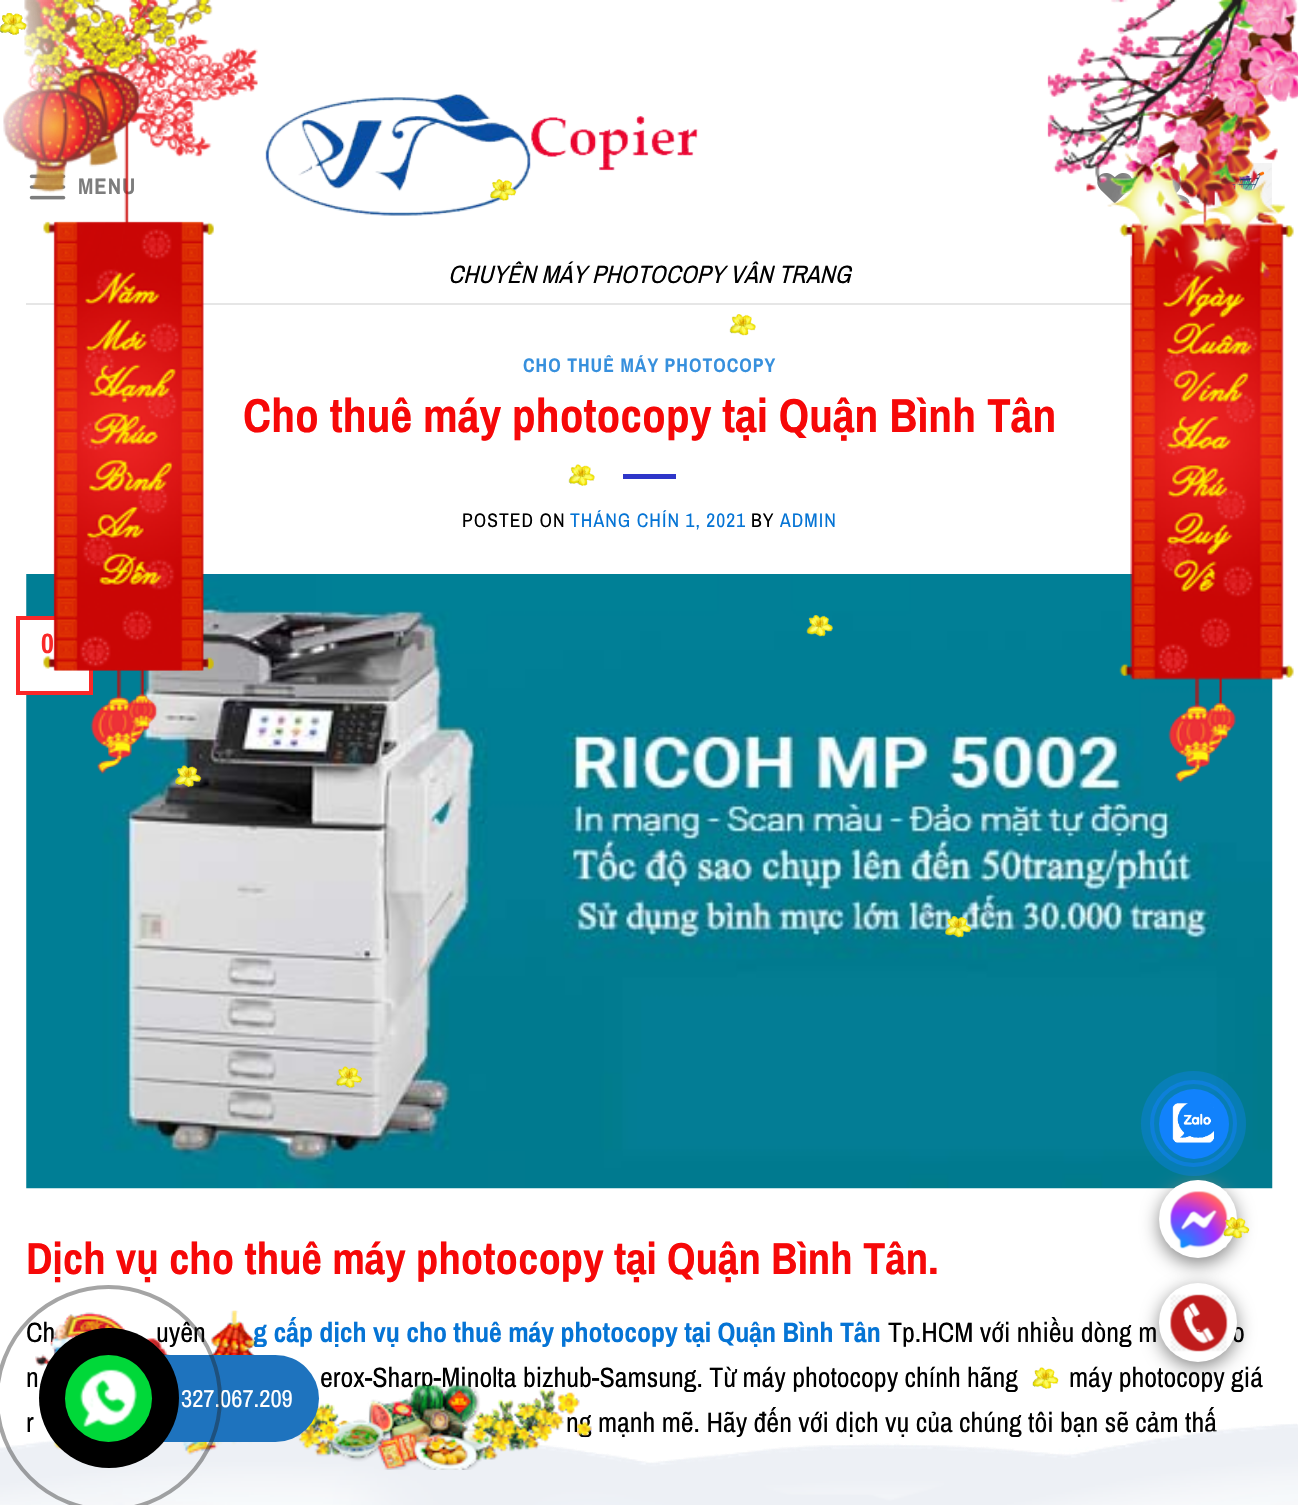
void draw(SkCanvas* canvas) {
	SkPaint fill;
	fill.setAntiAlias(true);
	auto makeFont = [&](const char* family, int weight, float size, bool italic = false) {
		SkFontStyle style(weight, SkFontStyle::kNormal_Width,
			italic ? SkFontStyle::kItalic_Slant : SkFontStyle::kUpright_Slant);
		SkFont result(fontMgr->matchFamilyStyle(family, style), size);
		result.setSubpixel(true);
		return result;
	};
	auto text = [&](const char* s, float x, float y, const SkFont& font) {
		canvas->drawString(s, x, y, font, fill);
	};
	auto spacedText = [&](const char* s, float x, float y, const SkFont& font, const SkPaint& ink, float letter, float word) {
		std::vector<SkGlyphID> glyphs(font.countText(s, strlen(s), SkTextEncoding::kUTF8));
		std::vector<float> xs(glyphs.size());
		font.textToGlyphs(s, strlen(s), SkTextEncoding::kUTF8, glyphs);
		font.getXPos(glyphs, xs, x);
		float extra = 0;
		for (size_t i = 0; i < glyphs.size(); i++) {
			xs[i] += extra;
			extra += letter + word * (glyphs[i] == font.unicharToGlyph(' '));
		}
		canvas->drawTextBlob(SkTextBlob::MakeFromPosHGlyphs(glyphs, xs, y, font), 0, 0, ink);
	};
	auto box = [&](float l, float t, float r, float b) {
		canvas->drawRect(SkRect::MakeLTRB(l, t, r, b), fill);
	};
	auto roundBox = [&](float l, float t, float r, float b, float radius) {
		canvas->drawRoundRect(SkRect::MakeLTRB(l, t, r, b), radius, radius, fill);
	};
	auto picture = [&](const char* path, float l, float t, float r, float b) {
		auto image = SkImages::DeferredFromEncodedData(SkData::MakeFromFileName(path));
		canvas->drawImageRect(image, SkRect::MakeLTRB(l, t, r, b), SkSamplingOptions());
	};
	canvas->clear(0xFFFFFFFF);
	picture("image15.png", 29, 174, 66, 200);
	picture("image16.png", 1097, 173, 1133, 203);
	picture("image17.png", 1170, 175, 1190, 203);
	picture("image18.png", 1216, 163, 1272, 210);
	picture("image19.png", 265, 94, 699, 216);
	fill.setColor(0xFFE6E6E6);
	box(26, 303, 1133, 305);
	fill.setColor(0xFF2E36C9);
	box(623, 474, 676, 479);
	picture("image20.png", 26, 574, 1273, 1189);
	fill.setColor(0xFFFFFFFF);
	box(26, 620, 89, 691);
	fill.setStyle(SkPaint::kStroke_Style);
	fill.setStrokeWidth(4);
	fill.setColor(0xFFFA2828);
	canvas->drawRect(SkRect::MakeLTRB(18, 618, 91, 693), fill);
	picture("image21.png", 490, 179, 517, 201);
	picture("image22.png", 729, 314, 756, 336);
	picture("image23.png", 568, 464, 595, 486);
	picture("image24.png", 806, 615, 833, 637);
	picture("image26.png", 945, 916, 972, 938);
	picture("image27.png", 336, 1066, 363, 1088);
	fill.setStyle(SkPaint::kFill_Style);
	fill.setColor(0xFF888888);
	fill.setMaskFilter(SkMaskFilter::MakeBlur(kNormal_SkBlurStyle, 9));
	canvas->drawRoundRect(SkRect::MakeLTRB(1159, 1185, 1237, 1264), 39, 39, fill);
	fill.setMaskFilter(nullptr);
	fill.setStyle(SkPaint::kStroke_Style);
	fill.setColor(0x801182FC);
	canvas->drawCircle(1193.5f, 1123.5f, 41.5f, fill);
	fill.setStyle(SkPaint::kFill_Style);
	fill.setColor(0x571182FC);
	canvas->drawCircle(1193.5f, 1123.5f, 52.5f, fill);
	fill.setColor(0xFF1182FC);
	canvas->drawCircle(1194, 1124, 35, fill);
	picture("image28.png", 1172, 1103, 1214, 1143);
	fill.setColor(0xFFFFFFFF);
	canvas->drawCircle(1198, 1219, 39, fill);
	picture("image32.png", 1170, 1191, 1228, 1249);
	picture("image29.png", 1223, 1217, 1250, 1239);
	fill.setColor(0xFF888888);
	fill.setMaskFilter(SkMaskFilter::MakeBlur(kNormal_SkBlurStyle, 9));
	canvas->drawRoundRect(SkRect::MakeLTRB(1159, 1288, 1237, 1367), 39, 39, fill);
	fill.setMaskFilter(nullptr);
	picture("image34.png", 1032, 1367, 1059, 1389);
	auto font1 = makeFont("Archivo Narrow", 700, 22.5f);
	fill.setColor(0xFF7D7D7D);
	spacedText("MENU", 78, 194, font1, fill, 1, 0);
	auto font2 = makeFont("Archivo Narrow", 400, 25.25f, true);
	fill.setColor(0xFF000000);
	text("CHUYÊN MÁY PHOTOCOPY VÂN TRANG", 448, 283, font2);
	auto font3 = makeFont("Archivo Narrow", 700, 19.6f);
	fill.setColor(0xFF3790DD);
	spacedText("CHO THUÊ MÁY PHOTOCOPY", 523, 372, font3, fill, 1, 0);
	auto font4 = makeFont("Archivo Narrow", 700, 47.6f);
	fill.setColor(0xFFF60808);
	text("Cho thuê máy photocopy tại Quận Bình Tân", 243, 432, font4);
	picture("image2.png", 1047, 0, 1298, 783);
	picture("image4.png", 1047, 0, 1298, 783);
	auto font5 = makeFont("Archivo Narrow", 400, 19.6f);
	fill.setColor(0xFF000000);
	spacedText("POSTED ON", 462, 527, font5, fill, 1, 0);
	fill.setColor(0xFF0574D5);
	spacedText("THÁNG CHÍN 1, 2021", 570, 527, font5, fill, 1, 0);
	fill.setColor(0xFF000000);
	spacedText("BY", 751, 527, font5, fill, 1, 0);
	fill.setColor(0xFF0574D5);
	spacedText("ADMIN", 780, 527, font5, fill, 1, 0);
	auto font6 = makeFont("Archivo Narrow", 700, 28);
	fill.setColor(0xFFFA2828);
	text("0", 41, 653, font6);
	picture("image0.png", 3, 0, 258, 774);
	picture("image14.png", 99, 28, 126, 50);
	auto font7 = makeFont("Archivo Narrow", 700, 44.8f);
	fill.setColor(0xFFF60808);
	text("Dịch vụ cho thuê máy photocopy tại Quận Bình Tân.", 26, 1274, font7);
	auto font8 = makeFont("Archivo Narrow", 400, 28);
	fill.setColor(0xFF000000);
	text("Ch", 26, 1342, font8);
	text("uyên", 156, 1342, font8);
	fill.setColor(0xFF0574D5);
	text("g cấp dịch vụ cho thuê máy photocopy tại Quận Bình Tân", 253, 1342, font6);
	fill.setColor(0xFF000000);
	text("Tp.HCM với nhiều dòng m", 888, 1342, font8);
	text("o", 1232, 1342, font8);
	text("n", 26, 1387, font8);
	text("erox-Sharp-Minolta bizhub-Samsung. Từ máy photocopy chính hãng", 320, 1387, font8);
	text("máy photocopy giá", 1069, 1387, font8);
	text("r", 26, 1432, font8);
	text("ng mạnh mẽ. Hãy đến với dịch vụ của chúng tôi bạn sẽ cảm thấ", 566, 1432, font8);
	picture("image25.png", 175, 765, 202, 787);
	picture("image1.png", 3, 0, 258, 774);
	picture("image3.png", 0, 13, 27, 35);
	picture("image5.png", 0, 13, 27, 35);
	picture("image6.png", 0, 13, 27, 35);
	picture("image7.png", 0, 13, 27, 35);
	picture("image8.png", 0, 13, 27, 35);
	picture("image9.png", 0, 13, 27, 35);
	picture("image10.png", 0, 13, 27, 35);
	picture("image11.png", 0, 13, 27, 35);
	picture("image12.png", 0, 13, 27, 35);
	picture("image13.png", 0, 13, 27, 35);
	fill.setColor(0xFFFFFFFF);
	roundBox(1159, 1283, 1237, 1362, 39);
	picture("image33.png", 1170, 1294, 1228, 1352);
	fill.setColor(0xFFD15F5F);
	text(".", 1195, 1332, font8);
	picture("image37.png", 0, 1424, 1298, 1505);
	picture("image30.png", 35, 1310, 592, 1448);
	picture("image36.png", 0, 1423, 1297, 1470);
	picture("image31.png", 35, 1310, 592, 1470);
	fill.setColor(0xFF1E73BE);
	roundBox(65, 1355, 319, 1442, 43.5f);
	auto font9 = makeFont("Archivo Narrow", 400, 24.5f);
	fill.setColor(0xFFFFFFFF);
	text("327.067.209", 181, 1407, font9);
	fill.setStyle(SkPaint::kStroke_Style);
	fill.setColor(0x661E1E1E);
	canvas->drawCircle(108.5f, 1398.5f, 111.5f, fill);
	fill.setStyle(SkPaint::kFill_Style);
	fill.setColor(0xFF000000);
	canvas->drawCircle(109, 1398, 70, fill);
	fill.setColor(0xFF00D839);
	canvas->drawCircle(108.5f, 1398.5f, 43.5f, fill);
	picture("image35.png", 79, 1369, 137, 1427);
}
